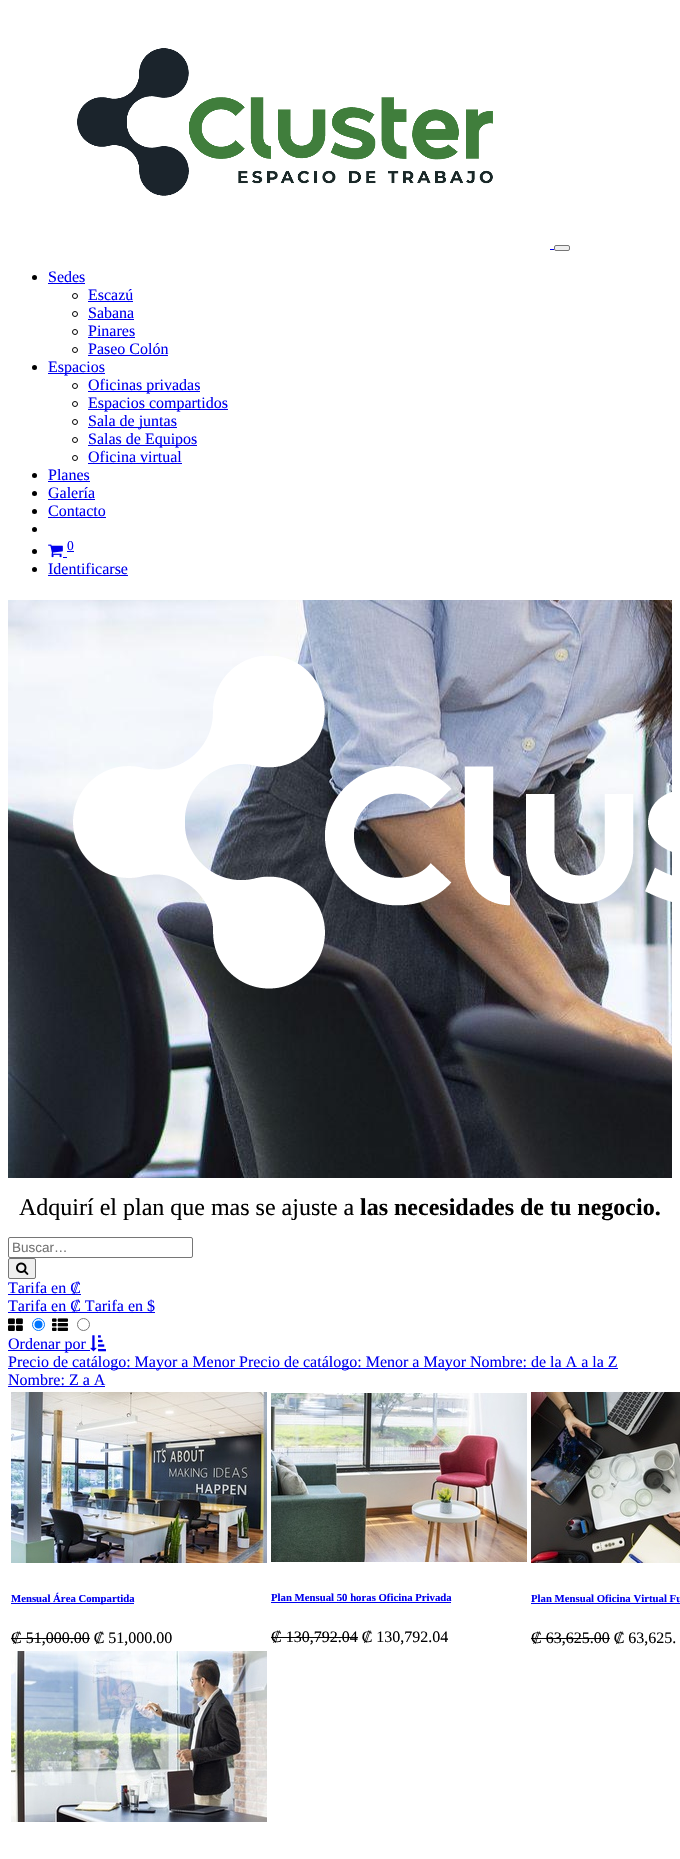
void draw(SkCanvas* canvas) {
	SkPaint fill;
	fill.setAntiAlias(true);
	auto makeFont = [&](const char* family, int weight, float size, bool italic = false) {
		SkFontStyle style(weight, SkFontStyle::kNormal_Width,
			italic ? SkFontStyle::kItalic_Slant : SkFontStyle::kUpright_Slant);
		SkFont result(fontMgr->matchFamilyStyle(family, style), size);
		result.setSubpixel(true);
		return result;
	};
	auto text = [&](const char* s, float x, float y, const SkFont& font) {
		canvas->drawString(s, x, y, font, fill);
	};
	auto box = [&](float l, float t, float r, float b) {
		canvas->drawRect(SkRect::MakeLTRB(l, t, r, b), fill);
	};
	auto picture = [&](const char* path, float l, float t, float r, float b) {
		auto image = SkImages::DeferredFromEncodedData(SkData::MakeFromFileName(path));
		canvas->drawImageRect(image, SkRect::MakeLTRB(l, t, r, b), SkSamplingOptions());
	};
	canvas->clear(0xFFFFFFFF);
	picture("image0.png", 77, 48, 493, 196);
	fill.setColor(0xFF0000EE);
	box(550, 249, 554, 250);
	fill.setColor(0xFFEFEFEF);
	canvas->drawRoundRect(SkRect::MakeLTRB(554.5f, 245.5f, 569.5f, 250.5f), 1.5f, 1.5f, fill);
	fill.setStyle(SkPaint::kStroke_Style);
	fill.setStrokeWidth(1);
	fill.setColor(0xFF767676);
	canvas->drawRoundRect(SkRect::MakeLTRB(554.5f, 245.5f, 569.5f, 250.5f), 1.5f, 1.5f, fill);
	fill.setStyle(SkPaint::kFill_Style);
	fill.setColor(0xFF000000);
	canvas->drawCircle(34.5f, 277.5f, 2.5f, fill);
	fill.setColor(0xFF0000EE);
	box(48, 283, 85, 284);
	fill.setStyle(SkPaint::kStroke_Style);
	fill.setColor(0xFF000000);
	canvas->drawCircle(75, 296, 2.5f, fill);
	fill.setStyle(SkPaint::kFill_Style);
	fill.setColor(0xFF0000EE);
	box(88, 301, 133, 302);
	fill.setStyle(SkPaint::kStroke_Style);
	fill.setColor(0xFF000000);
	canvas->drawCircle(75, 314, 2.5f, fill);
	fill.setStyle(SkPaint::kFill_Style);
	fill.setColor(0xFF0000EE);
	box(88, 319, 134, 320);
	fill.setStyle(SkPaint::kStroke_Style);
	fill.setColor(0xFF000000);
	canvas->drawCircle(75, 332, 2.5f, fill);
	fill.setStyle(SkPaint::kFill_Style);
	fill.setColor(0xFF0000EE);
	box(88, 337, 135, 338);
	fill.setStyle(SkPaint::kStroke_Style);
	fill.setColor(0xFF000000);
	canvas->drawCircle(75, 350, 2.5f, fill);
	fill.setStyle(SkPaint::kFill_Style);
	fill.setColor(0xFF0000EE);
	box(88, 355, 168, 356);
	fill.setColor(0xFF000000);
	canvas->drawCircle(34.5f, 367.5f, 2.5f, fill);
	fill.setColor(0xFF0000EE);
	box(48, 373, 105, 374);
	fill.setStyle(SkPaint::kStroke_Style);
	fill.setColor(0xFF000000);
	canvas->drawCircle(75, 386, 2.5f, fill);
	fill.setStyle(SkPaint::kFill_Style);
	fill.setColor(0xFF0000EE);
	box(88, 391, 200, 392);
	fill.setStyle(SkPaint::kStroke_Style);
	fill.setColor(0xFF000000);
	canvas->drawCircle(75, 404, 2.5f, fill);
	fill.setStyle(SkPaint::kFill_Style);
	fill.setColor(0xFF0000EE);
	box(88, 409, 228, 410);
	fill.setStyle(SkPaint::kStroke_Style);
	fill.setColor(0xFF000000);
	canvas->drawCircle(75, 422, 2.5f, fill);
	fill.setStyle(SkPaint::kFill_Style);
	fill.setColor(0xFF0000EE);
	box(88, 427, 177, 428);
	fill.setStyle(SkPaint::kStroke_Style);
	fill.setColor(0xFF000000);
	canvas->drawCircle(75, 440, 2.5f, fill);
	fill.setStyle(SkPaint::kFill_Style);
	fill.setColor(0xFF0000EE);
	box(88, 445, 197, 446);
	fill.setStyle(SkPaint::kStroke_Style);
	fill.setColor(0xFF000000);
	canvas->drawCircle(75, 458, 2.5f, fill);
	fill.setStyle(SkPaint::kFill_Style);
	fill.setColor(0xFF0000EE);
	box(88, 463, 182, 464);
	fill.setColor(0xFF000000);
	canvas->drawCircle(34.5f, 475.5f, 2.5f, fill);
	fill.setColor(0xFF0000EE);
	box(48, 481, 90, 482);
	fill.setColor(0xFF000000);
	canvas->drawCircle(34.5f, 493.5f, 2.5f, fill);
	fill.setColor(0xFF0000EE);
	box(48, 499, 95, 500);
	fill.setColor(0xFF000000);
	canvas->drawCircle(34.5f, 511.5f, 2.5f, fill);
	fill.setColor(0xFF0000EE);
	box(48, 517, 106, 518);
	fill.setColor(0xFF000000);
	canvas->drawCircle(34.5f, 529.5f, 2.5f, fill);
	picture("image1.png", 48, 544, 63, 558);
	fill.setColor(0xFF0000EE);
	box(63, 557, 67, 558);
	box(67, 551, 74, 552);
	fill.setColor(0xFF000000);
	canvas->drawCircle(34.5f, 551.5f, 2.5f, fill);
	canvas->drawCircle(34.5f, 569.5f, 2.5f, fill);
	fill.setColor(0xFF0000EE);
	box(48, 575, 128, 576);
	picture("image2.png", 8, 600, 672, 1178);
	picture("image3.png", 73, 656, 672, 989);
	fill.setStyle(SkPaint::kStroke_Style);
	fill.setColor(0xFF767676);
	canvas->drawRoundRect(SkRect::MakeLTRB(8.5f, 1237.5f, 192.5f, 1257.5f), 1.5f, 1.5f, fill);
	fill.setStyle(SkPaint::kFill_Style);
	fill.setColor(0xFFEFEFEF);
	canvas->drawRoundRect(SkRect::MakeLTRB(8.5f, 1258.5f, 35.5f, 1278.5f), 1.5f, 1.5f, fill);
	fill.setStyle(SkPaint::kStroke_Style);
	fill.setColor(0xFF767676);
	canvas->drawRoundRect(SkRect::MakeLTRB(8.5f, 1258.5f, 35.5f, 1278.5f), 1.5f, 1.5f, fill);
	picture("image4.png", 16, 1262, 29, 1275);
	fill.setStyle(SkPaint::kFill_Style);
	fill.setColor(0xFF0000EE);
	box(8, 1294, 81, 1295);
	box(8, 1312, 155, 1313);
	picture("image5.png", 8, 1318, 23, 1331);
	fill.setStyle(SkPaint::kStroke_Style);
	fill.setColor(0xFF0075FF);
	canvas->drawCircle(38.5f, 1324.5f, 6, fill);
	fill.setStyle(SkPaint::kFill_Style);
	canvas->drawCircle(38.5f, 1324.5f, 4, fill);
	picture("image6.png", 52, 1318, 68, 1331);
	fill.setStyle(SkPaint::kStroke_Style);
	fill.setColor(0xFF767676);
	canvas->drawCircle(83.5f, 1324.5f, 6, fill);
	fill.setStyle(SkPaint::kFill_Style);
	fill.setColor(0xFF0000EE);
	box(8, 1350, 90, 1351);
	picture("image7.png", 90, 1335, 106, 1352);
	box(8, 1368, 618, 1369);
	box(8, 1386, 105, 1387);
	picture("image8.png", 11, 1392, 267, 1563);
	box(11, 1603, 134, 1604);
	fill.setColor(0xFF000000);
	box(11, 1638, 90, 1639);
	picture("image9.png", 271, 1393, 527, 1562);
	fill.setColor(0xFF0000EE);
	box(271, 1602, 451, 1603);
	fill.setColor(0xFF000000);
	box(271, 1637, 358, 1638);
	picture("image10.png", 531, 1392, 680, 1563);
	fill.setColor(0xFF0000EE);
	box(531, 1603, 680, 1604);
	fill.setColor(0xFF000000);
	box(531, 1638, 610, 1639);
	picture("image11.png", 11, 1651, 267, 1822);
	auto font1 = makeFont("Liberation Serif", 400, 16);
	fill.setColor(0xFF0000EE);
	text("Sedes", 48, 282, font1);
	text("Escazú", 88, 300, font1);
	text("Sabana", 88, 318, font1);
	text("Pinares", 88, 336, font1);
	text("Paseo Colón", 88, 354, font1);
	text("Espacios", 48, 372, font1);
	text("Oficinas privadas", 88, 390, font1);
	text("Espacios compartidos", 88, 408, font1);
	text("Sala de juntas", 88, 426, font1);
	text("Salas de Equipos", 88, 444, font1);
	text("Oficina virtual", 88, 462, font1);
	text("Planes", 48, 480, font1);
	text("Galería", 48, 498, font1);
	text("Contacto", 48, 516, font1);
	auto font2 = makeFont("Liberation Serif", 400, 13.5f);
	text("0", 67, 550, font2);
	text("Identificarse", 48, 574, font1);
	auto font3 = makeFont("Liberation Serif", 400, 24);
	fill.setColor(0xFF000000);
	text("Adquirí el plan que mas se ajuste a", 19, 1215, font3);
	auto font4 = makeFont("Liberation Serif", 700, 24);
	text("las necesidades de tu negocio.", 360, 1215, font4);
	auto font5 = makeFont("Liberation Sans", 400, 13.5f);
	fill.setColor(0xFF757575);
	text("Buscar…", 12, 1252, font5);
	fill.setColor(0xFF0000EE);
	text("Tarifa en ₡", 8, 1293, font1);
	text("Tarifa en ₡ Tarifa en $", 8, 1311, font1);
	text("Ordenar por", 8, 1349, font1);
	text("Precio de catálogo: Mayor a Menor Precio de catálogo: Menor a Mayor Nombre: de la A a la Z", 8, 1367, font1);
	text("Nombre: Z a A", 8, 1385, font1);
	auto font6 = makeFont("Liberation Serif", 700, 10.75f);
	text("Mensual Área Compartida", 11, 1602, font6);
	fill.setColor(0xFF000000);
	text("₡ 51,000.00 ₡ 51,000.00", 11, 1643, font1);
	fill.setColor(0xFF0000EE);
	text("Plan Mensual 50 horas Oficina Privada", 271, 1601, font6);
	fill.setColor(0xFF000000);
	text("₡ 130,792.04 ₡ 130,792.04", 271, 1642, font1);
	fill.setColor(0xFF0000EE);
	text("Plan Mensual Oficina Virtual Fu", 531, 1602, font6);
	fill.setColor(0xFF000000);
	text("₡ 63,625.00 ₡ 63,625.", 531, 1643, font1);
}
